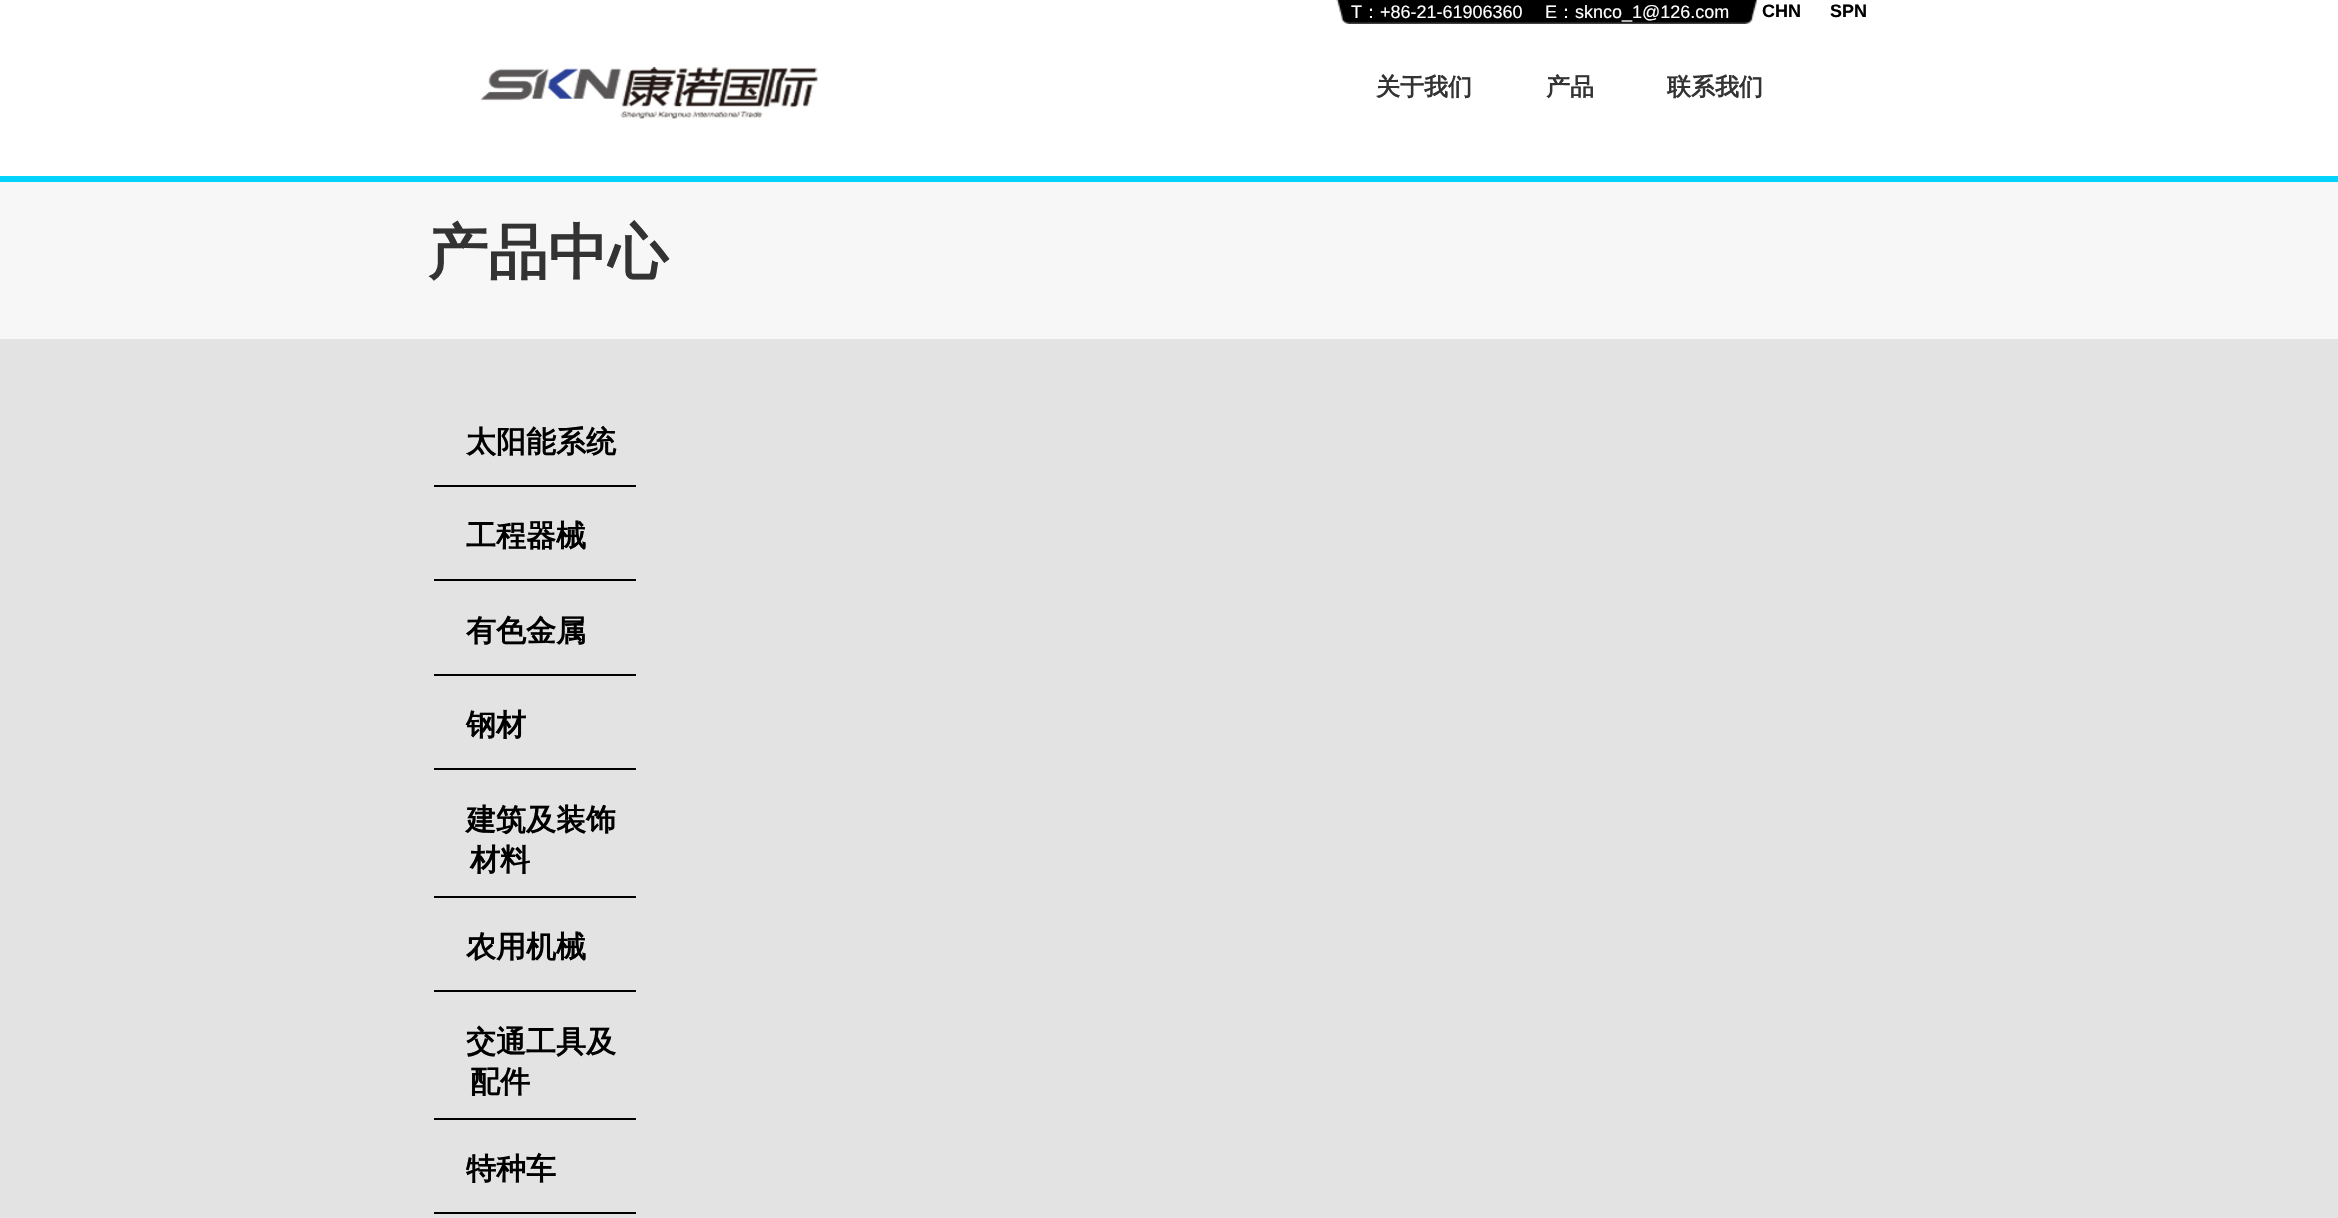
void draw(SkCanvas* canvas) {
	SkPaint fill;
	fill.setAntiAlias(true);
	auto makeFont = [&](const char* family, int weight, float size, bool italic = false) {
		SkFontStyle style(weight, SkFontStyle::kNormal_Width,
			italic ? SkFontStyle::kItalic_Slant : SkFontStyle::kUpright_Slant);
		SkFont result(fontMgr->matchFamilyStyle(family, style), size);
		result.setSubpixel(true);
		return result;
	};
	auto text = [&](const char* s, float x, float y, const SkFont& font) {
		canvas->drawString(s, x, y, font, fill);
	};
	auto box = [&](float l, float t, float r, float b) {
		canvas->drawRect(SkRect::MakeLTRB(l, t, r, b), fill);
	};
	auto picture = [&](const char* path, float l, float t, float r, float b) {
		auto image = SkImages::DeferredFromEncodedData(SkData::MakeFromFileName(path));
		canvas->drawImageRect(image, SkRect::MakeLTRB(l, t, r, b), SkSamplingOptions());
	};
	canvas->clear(0xFFFFFFFF);
	fill.setColor(0xFF00D4FE);
	box(0, 176, 2338, 182);
	picture("image0.png", 480, 66, 818, 119);
	picture("image1.png", 1336, 0, 1758, 24);
	fill.setColor(0xFFF7F7F7);
	box(0, 182, 2338, 339);
	fill.setColor(0xFFE3E3E3);
	box(0, 339, 2338, 1218);
	fill.setColor(0xFF000000);
	box(434, 485, 636, 487);
	box(434, 579, 636, 581);
	box(434, 674, 636, 676);
	box(434, 768, 636, 770);
	box(434, 896, 636, 898);
	box(434, 990, 636, 992);
	box(434, 1118, 636, 1120);
	box(434, 1212, 636, 1214);
	auto font1 = makeFont("Liberation Sans", 400, 18);
	fill.setColor(0xFFFFFFFF);
	text("T", 1351, 18, font1);
	auto font2 = makeFont("WenQuanYi Zen Hei", 500, 18);
	text("：", 1362, 18, font2);
	text("+86-21-61906360", 1380, 18, font1);
	text("E", 1545, 18, font1);
	text("：", 1557, 18, font2);
	text("sknco_1@126.com", 1575, 18, font1);
	auto font3 = makeFont("Liberation Sans", 700, 18);
	fill.setColor(0xFF000000);
	text("CHN", 1762, 17, font3);
	text("SPN", 1830, 17, font3);
	auto font4 = makeFont("WenQuanYi Zen Hei", 700, 24);
	fill.setColor(0xFF333333);
	text("关于我们", 1376, 95, font4);
	text("产品", 1546, 95, font4);
	text("联系我们", 1667, 95, font4);
	auto font5 = makeFont("WenQuanYi Zen Hei", 700, 60);
	text("产品中心", 428, 273, font5);
	auto font6 = makeFont("WenQuanYi Zen Hei", 700, 30);
	fill.setColor(0xFF000000);
	text("太阳能系统", 466, 452, font6);
	text("工程器械", 466, 546, font6);
	text("有色金属", 466, 641, font6);
	text("钢材", 466, 735, font6);
	text("建筑及装饰", 466, 830, font6);
	text("材料", 470, 870, font6);
	text("农用机械", 466, 957, font6);
	text("交通工具及", 466, 1052, font6);
	text("配件", 470, 1092, font6);
	text("特种车", 466, 1179, font6);
}
